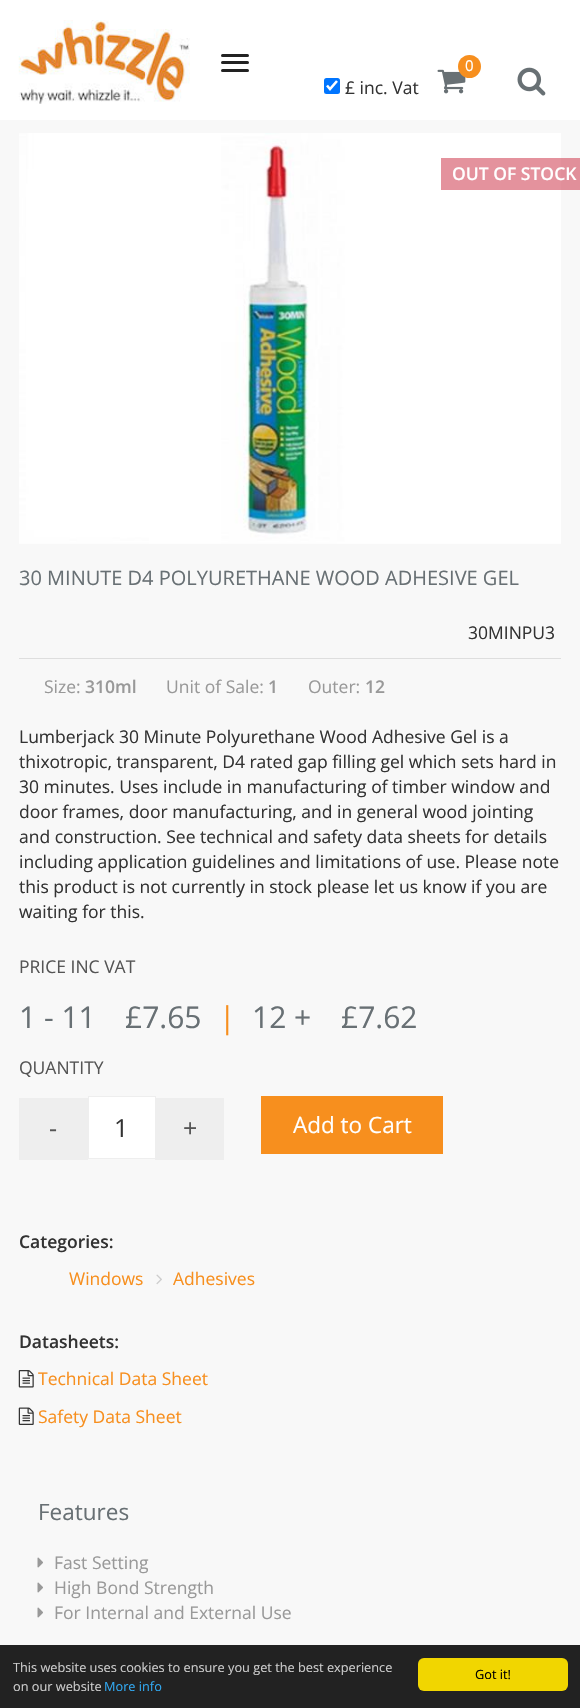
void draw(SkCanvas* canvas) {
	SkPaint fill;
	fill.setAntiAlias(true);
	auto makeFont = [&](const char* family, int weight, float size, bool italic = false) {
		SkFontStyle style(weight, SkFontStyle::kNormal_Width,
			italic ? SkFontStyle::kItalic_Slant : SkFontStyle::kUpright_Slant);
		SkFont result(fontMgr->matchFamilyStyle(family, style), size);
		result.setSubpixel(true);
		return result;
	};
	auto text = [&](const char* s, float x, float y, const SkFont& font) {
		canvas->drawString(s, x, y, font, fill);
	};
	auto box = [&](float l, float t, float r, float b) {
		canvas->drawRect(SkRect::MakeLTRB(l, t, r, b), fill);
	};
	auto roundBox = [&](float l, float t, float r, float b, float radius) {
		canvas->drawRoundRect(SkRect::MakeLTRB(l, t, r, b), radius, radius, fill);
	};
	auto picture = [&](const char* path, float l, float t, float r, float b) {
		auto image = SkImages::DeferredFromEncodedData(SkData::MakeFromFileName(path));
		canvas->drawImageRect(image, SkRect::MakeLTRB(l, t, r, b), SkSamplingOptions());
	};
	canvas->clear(0xFFFFFFFF);
	picture("image0.png", 18, 20, 190, 104);
	fill.setColor(0xFF222222);
	roundBox(221, 54, 249, 57, 1.5f);
	roundBox(221, 61, 249, 64, 1.5f);
	roundBox(221, 69, 249, 72, 1.5f);
	fill.setColor(0xFF0075FF);
	roundBox(324, 78, 340, 94, 2.5f);
	fill.setStyle(SkPaint::kStroke_Style);
	fill.setStrokeWidth(2.6f);
	fill.setColor(0xFFFFFFFF);
	canvas->drawPath(SkPathBuilder().moveTo(327, 85.5f).lineTo(330, 89).lineTo(337, 81).detach(), fill);
	picture("image1.png", 437, 69, 466, 94);
	fill.setStyle(SkPaint::kFill_Style);
	fill.setColor(0xFFF78F1E);
	canvas->drawCircle(469.5f, 66.5f, 11.5f, fill);
	picture("image2.png", 517, 67, 546, 96);
	fill.setColor(0xFFF8F8F8);
	box(0, 120, 580, 1645);
	picture("image3.png", 19, 133, 561, 544);
	fill.setColor(0x80C9253C);
	box(441, 158, 580, 190);
	fill.setColor(0xFFDEDEDE);
	box(19, 658, 561, 659);
	fill.setColor(0xFFEEEEEE);
	box(19, 1098, 88, 1160);
	fill.setColor(0xFFFFFFFF);
	canvas->drawRect(SkRect::MakeLTRB(88.5f, 1096.5f, 155.5f, 1158.5f), fill);
	fill.setStyle(SkPaint::kStroke_Style);
	fill.setStrokeWidth(1);
	fill.setColor(0xFFEEEEEE);
	canvas->drawRect(SkRect::MakeLTRB(88.5f, 1096.5f, 155.5f, 1158.5f), fill);
	fill.setStyle(SkPaint::kFill_Style);
	box(155, 1098, 224, 1160);
	fill.setColor(0xFFF78F1E);
	box(261, 1096, 443, 1154);
	picture("image4.png", 156, 1274, 162, 1285);
	picture("image5.png", 18, 1370, 34, 1388);
	picture("image6.png", 18, 1407, 34, 1425);
	picture("image7.png", 37, 1557, 43, 1568);
	picture("image7.png", 37, 1582, 43, 1593);
	picture("image7.png", 37, 1607, 43, 1618);
	fill.setColor(0xFF222222);
	box(0, 1645, 580, 1708);
	fill.setColor(0xFFF1D600);
	roundBox(418, 1658, 568, 1691, 6);
	auto font1 = makeFont("Open Sans", 400, 17.5f);
	fill.setColor(0xFF333333);
	text("£ inc. Vat", 345, 94, font1);
	auto font2 = makeFont("Open Sans", 400, 15);
	fill.setColor(0xFFFFFFFF);
	text("0", 465, 71, font2);
	auto font3 = makeFont("Open Sans", 600, 17.5f);
	text("OUT OF STOCK", 452, 180, font3);
	auto font4 = makeFont("Open Sans", 400, 20);
	fill.setColor(0xFF687074);
	text("30 MINUTE D4 POLYURETHANE WOOD ADHESIVE GEL", 19, 585, font4);
	fill.setColor(0xFF333333);
	text("30MINPU3", 468, 639, font1);
	fill.setColor(0xFF999999);
	text("Size:", 44, 693, font1);
	text("310ml", 85, 693, font3);
	text("Unit of Sale:", 166, 693, font1);
	text("1", 268, 693, font3);
	text("Outer:", 308, 693, font1);
	text("12", 365, 693, font3);
	fill.setColor(0xFF333333);
	text("Lumberjack 30 Minute Polyurethane Wood Adhesive Gel is a", 19, 743, font1);
	text("thixotropic, transparent, D4 rated gap filling gel which sets hard in", 19, 768, font1);
	text("30 minutes. Uses include in manufacturing of timber window and", 19, 793, font1);
	text("door frames, door manufacturing, and in general wood jointing", 19, 818, font1);
	text("and construction. See technical and safety data sheets for details", 19, 843, font1);
	text("including application guidelines and limitations of use. Please note", 19, 868, font1);
	text("this product is not currently in stock please let us know if you are", 19, 893, font1);
	text("waiting for this.", 19, 918, font1);
	fill.setColor(0xFF555555);
	text("PRICE INC VAT", 19, 973, font1);
	auto font5 = makeFont("Open Sans", 400, 30);
	fill.setColor(0xFF687074);
	text("1 - 11", 19, 1028, font5);
	text("£7.65", 125, 1028, font5);
	fill.setColor(0xFFF78F1E);
	text("|", 219, 1028, font5);
	fill.setColor(0xFF687074);
	text("12 +", 252, 1028, font5);
	text("£7.62", 341, 1028, font5);
	fill.setColor(0xFF555555);
	text("QUANTITY", 19, 1074, font1);
	auto font6 = makeFont("Open Sans", 400, 25);
	text("-", 49, 1137, font6);
	fill.setColor(0xFF333333);
	text("1", 114, 1137, font6);
	fill.setColor(0xFF555555);
	text("+", 183, 1137, font6);
	auto font7 = makeFont("Open Sans", 400, 22.5f);
	fill.setColor(0xFFFFFFFF);
	text("Add to Cart", 293, 1133, font7);
	fill.setColor(0xFF333333);
	text("Categories:", 19, 1248, font3);
	fill.setColor(0xFFF78F1E);
	text("Windows", 69, 1285, font1);
	text("Adhesives", 173, 1285, font1);
	fill.setColor(0xFF333333);
	text("Datasheets:", 19, 1348, font3);
	fill.setColor(0xFFF78F1E);
	text("Technical Data Sheet", 38, 1385, font1);
	text("Safety Data Sheet", 38, 1423, font1);
	fill.setColor(0xFF687074);
	text("Features", 38, 1520, font7);
	fill.setColor(0xFF999999);
	text("Fast Setting", 54, 1569, font1);
	text("High Bond Strength", 54, 1594, font1);
	text("For Internal and External Use", 54, 1619, font1);
	auto font8 = makeFont("Open Sans", 400, 12.75f);
	fill.setColor(0xFFCCCCCC);
	text("This website uses cookies to ensure you get the best experience", 13, 1672, font8);
	text("on our website", 13, 1691, font8);
	fill.setColor(0xFF31A8F0);
	text("More info", 104, 1691, font8);
	fill.setColor(0xFF000000);
	text("Got it!", 475, 1679, font8);
}
